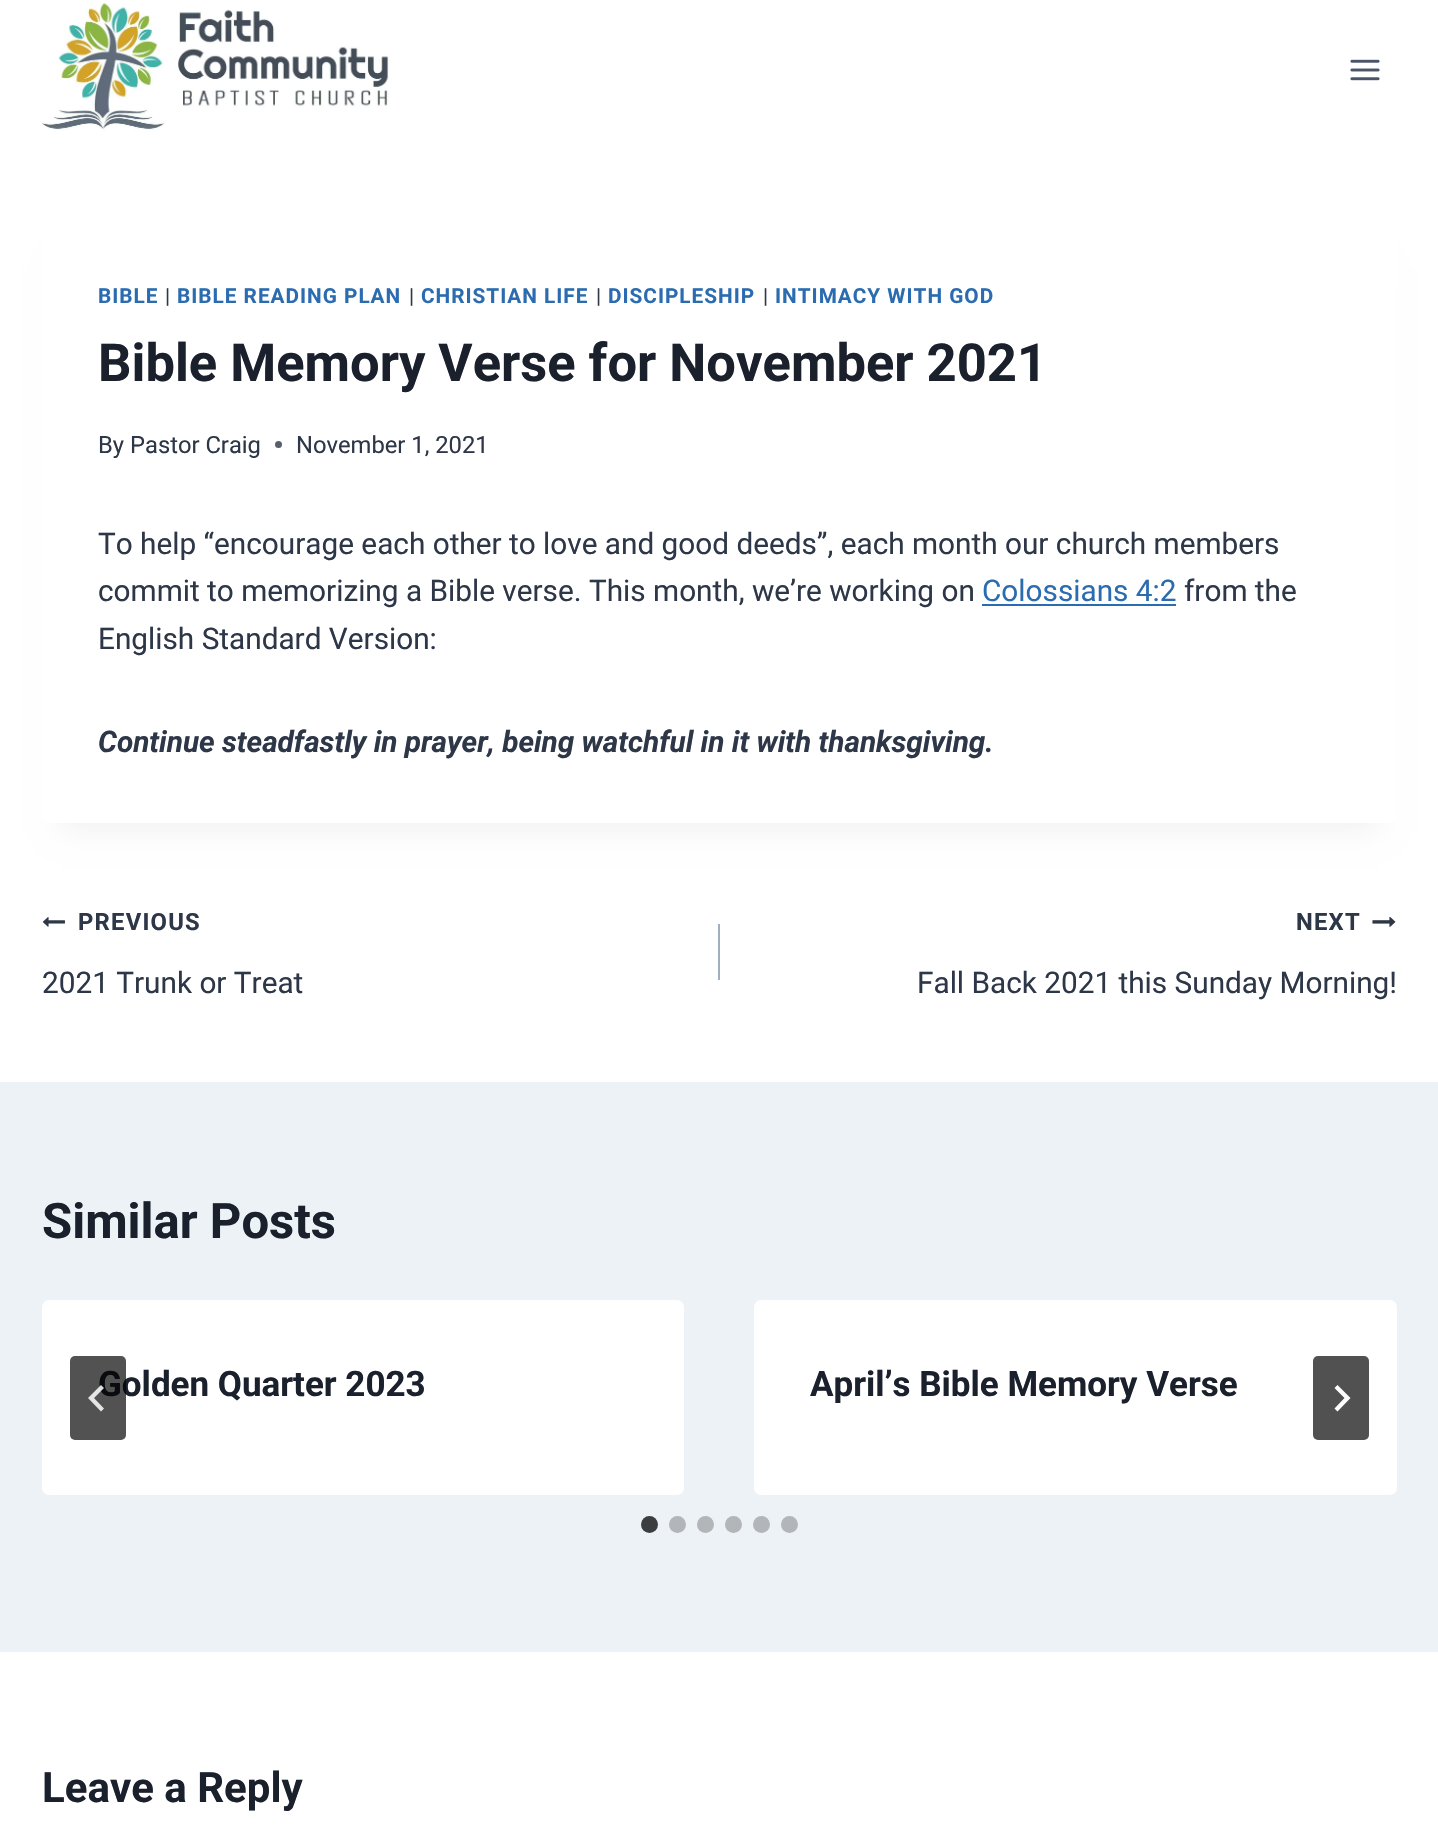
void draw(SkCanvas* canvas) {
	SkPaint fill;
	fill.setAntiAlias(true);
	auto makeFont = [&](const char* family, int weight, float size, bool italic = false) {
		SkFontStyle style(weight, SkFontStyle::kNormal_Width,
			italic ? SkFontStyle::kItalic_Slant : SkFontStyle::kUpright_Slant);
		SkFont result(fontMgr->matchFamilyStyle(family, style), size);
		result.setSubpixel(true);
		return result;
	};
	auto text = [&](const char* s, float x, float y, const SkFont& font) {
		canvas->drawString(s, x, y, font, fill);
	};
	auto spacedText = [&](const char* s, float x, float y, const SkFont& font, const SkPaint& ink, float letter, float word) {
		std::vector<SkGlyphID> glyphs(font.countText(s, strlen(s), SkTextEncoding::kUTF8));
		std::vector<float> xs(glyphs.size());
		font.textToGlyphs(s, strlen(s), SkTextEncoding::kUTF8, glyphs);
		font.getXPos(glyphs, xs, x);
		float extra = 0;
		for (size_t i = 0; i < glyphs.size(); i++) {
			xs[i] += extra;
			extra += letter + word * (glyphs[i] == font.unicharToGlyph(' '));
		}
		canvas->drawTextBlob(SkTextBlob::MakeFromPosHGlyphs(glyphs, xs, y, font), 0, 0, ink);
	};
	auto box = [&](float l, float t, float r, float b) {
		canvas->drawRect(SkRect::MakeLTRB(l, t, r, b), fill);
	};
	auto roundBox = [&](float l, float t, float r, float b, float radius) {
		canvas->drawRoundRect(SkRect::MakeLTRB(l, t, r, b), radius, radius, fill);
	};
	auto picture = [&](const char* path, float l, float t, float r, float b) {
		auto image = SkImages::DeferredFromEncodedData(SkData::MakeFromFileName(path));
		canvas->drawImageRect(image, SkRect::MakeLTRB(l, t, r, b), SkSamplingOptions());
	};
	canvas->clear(0xFFFFFFFF);
	picture("image0.png", 42, 3, 389, 131);
	picture("image1.png", 1350, 59, 1380, 81);
	fill.setColor(0x0D000000);
	fill.setMaskFilter(SkMaskFilter::MakeBlur(kNormal_SkBlurStyle, 13));
	canvas->drawRect(SkRect::MakeLTRB(60, 268, 1379, 831), fill);
	fill.setMaskFilter(nullptr);
	fill.setColor(0xFFFFFFFF);
	roundBox(42, 224, 1397, 823, 7);
	fill.setColor(0xFF575F6D);
	canvas->drawCircle(278.5f, 444.5f, 3.5f, fill);
	fill.setColor(0xFF2B6CB0);
	box(982, 604, 1176, 606);
	picture("image2.png", 42, 917, 65, 927);
	fill.setColor(0xFFA0AEC0);
	box(718, 924, 720, 980);
	picture("image3.png", 1372, 916, 1396, 927);
	fill.setColor(0xFFEDF2F7);
	box(0, 1082, 1438, 1652);
	fill.setColor(0xFFFFFFFF);
	roundBox(754, 1300, 1397, 1495, 7);
	fill.setColor(0xFF515151);
	roundBox(1313, 1356, 1369, 1440, 5);
	fill.setColor(0xFFFFFFFF);
	canvas->drawPath(SkPathBuilder().moveTo(1337.5f, 1385).lineTo(1334.5f, 1388).lineTo(1344.5f, 1398).lineTo(1334.5f, 1408.5f).lineTo(1337.5f, 1411.5f).lineTo(1350.5f, 1398).close().detach(), fill);
	roundBox(42, 1300, 684, 1495, 7);
	fill.setColor(0xFF3B3D3E);
	canvas->drawCircle(649.5f, 1524.5f, 8.5f, fill);
	fill.setColor(0xFFB2B6B9);
	canvas->drawCircle(677.5f, 1524.5f, 8.5f, fill);
	canvas->drawCircle(705.5f, 1524.5f, 8.5f, fill);
	canvas->drawCircle(733.5f, 1524.5f, 8.5f, fill);
	canvas->drawCircle(761.5f, 1524.5f, 8.5f, fill);
	canvas->drawCircle(789.5f, 1524.5f, 8.5f, fill);
	auto font1 = makeFont("Roboto", 700, 20.75f);
	fill.setColor(0xFF2B6CB0);
	spacedText("BIBLE", 98, 303, font1, fill, 1, 0);
	auto font2 = makeFont("Roboto", 400, 20.75f);
	fill.setColor(0xFF2D3748);
	spacedText("|", 165, 303, font2, fill, 1, 0);
	fill.setColor(0xFF2B6CB0);
	spacedText("BIBLE READING PLAN", 177, 303, font1, fill, 1, 0);
	fill.setColor(0xFF2D3748);
	spacedText("|", 409, 303, font2, fill, 1, 0);
	fill.setColor(0xFF2B6CB0);
	spacedText("CHRISTIAN LIFE", 421, 303, font1, fill, 1, 0);
	fill.setColor(0xFF2D3748);
	spacedText("|", 596, 303, font2, fill, 1, 0);
	fill.setColor(0xFF2B6CB0);
	spacedText("DISCIPLESHIP", 608, 303, font1, fill, 1, 0);
	fill.setColor(0xFF2D3748);
	spacedText("|", 763, 303, font2, fill, 1, 0);
	fill.setColor(0xFF2B6CB0);
	spacedText("INTIMACY WITH GOD", 775, 303, font1, fill, 1, 0);
	auto font3 = makeFont("Roboto", 700, 52.5f);
	fill.setColor(0xFF1A202C);
	text("Bible Memory Verse for November 2021", 98, 381, font3);
	auto font4 = makeFont("Roboto", 400, 23.75f);
	fill.setColor(0xFF2D3748);
	text("By", 98, 453, font4);
	text("Pastor Craig", 130, 453, font4);
	text("November 1, 2021", 296, 453, font4);
	auto font5 = makeFont("Roboto", 400, 29.75f);
	text("To help “encourage each other to love and good deeds”, each month our church members", 98, 554, font5);
	text("commit to memorizing a Bible verse. This month, we’re working on", 98, 601, font5);
	fill.setColor(0xFF2B6CB0);
	text("Colossians 4:2", 982, 601, font5);
	fill.setColor(0xFF2D3748);
	text("from the", 1184, 601, font5);
	text("English Standard Version:", 98, 649, font5);
	auto font6 = makeFont("Roboto", 700, 29.75f, true);
	text("Continue steadfastly in prayer, being watchful in it with thanksgiving.", 98, 752, font6);
	auto font7 = makeFont("Roboto", 700, 23.75f);
	spacedText("PREVIOUS", 78, 930, font7, fill, 1.25f, 0);
	text("2021 Trunk or Treat", 42, 993, font5);
	spacedText("NEXT", 1296, 930, font7, fill, 1.25f, 0);
	text("Fall Back 2021 this Sunday Morning!", 917, 993, font5);
	auto font8 = makeFont("Roboto", 700, 49);
	fill.setColor(0xFF1A202C);
	text("Similar Posts", 42, 1238, font8);
	auto font9 = makeFont("Roboto", 700, 35);
	text("Golden Quarter 2023", 98, 1396, font9);
	fill.setColor(0xAD000000);
	roundBox(70, 1356, 126, 1440, 5);
	fill.setColor(0xD9FFFFFF);
	canvas->drawPath(SkPathBuilder().moveTo(101, 1385).lineTo(104, 1388).lineTo(94, 1398).lineTo(104, 1408.5f).lineTo(101, 1411.5f).lineTo(88, 1398).close().detach(), fill);
	fill.setColor(0xFF1A202C);
	text("April’s Bible Memory Verse", 810, 1396, font9);
	auto font10 = makeFont("Roboto", 700, 42);
	text("Leave a Reply", 42, 1802, font10);
}
